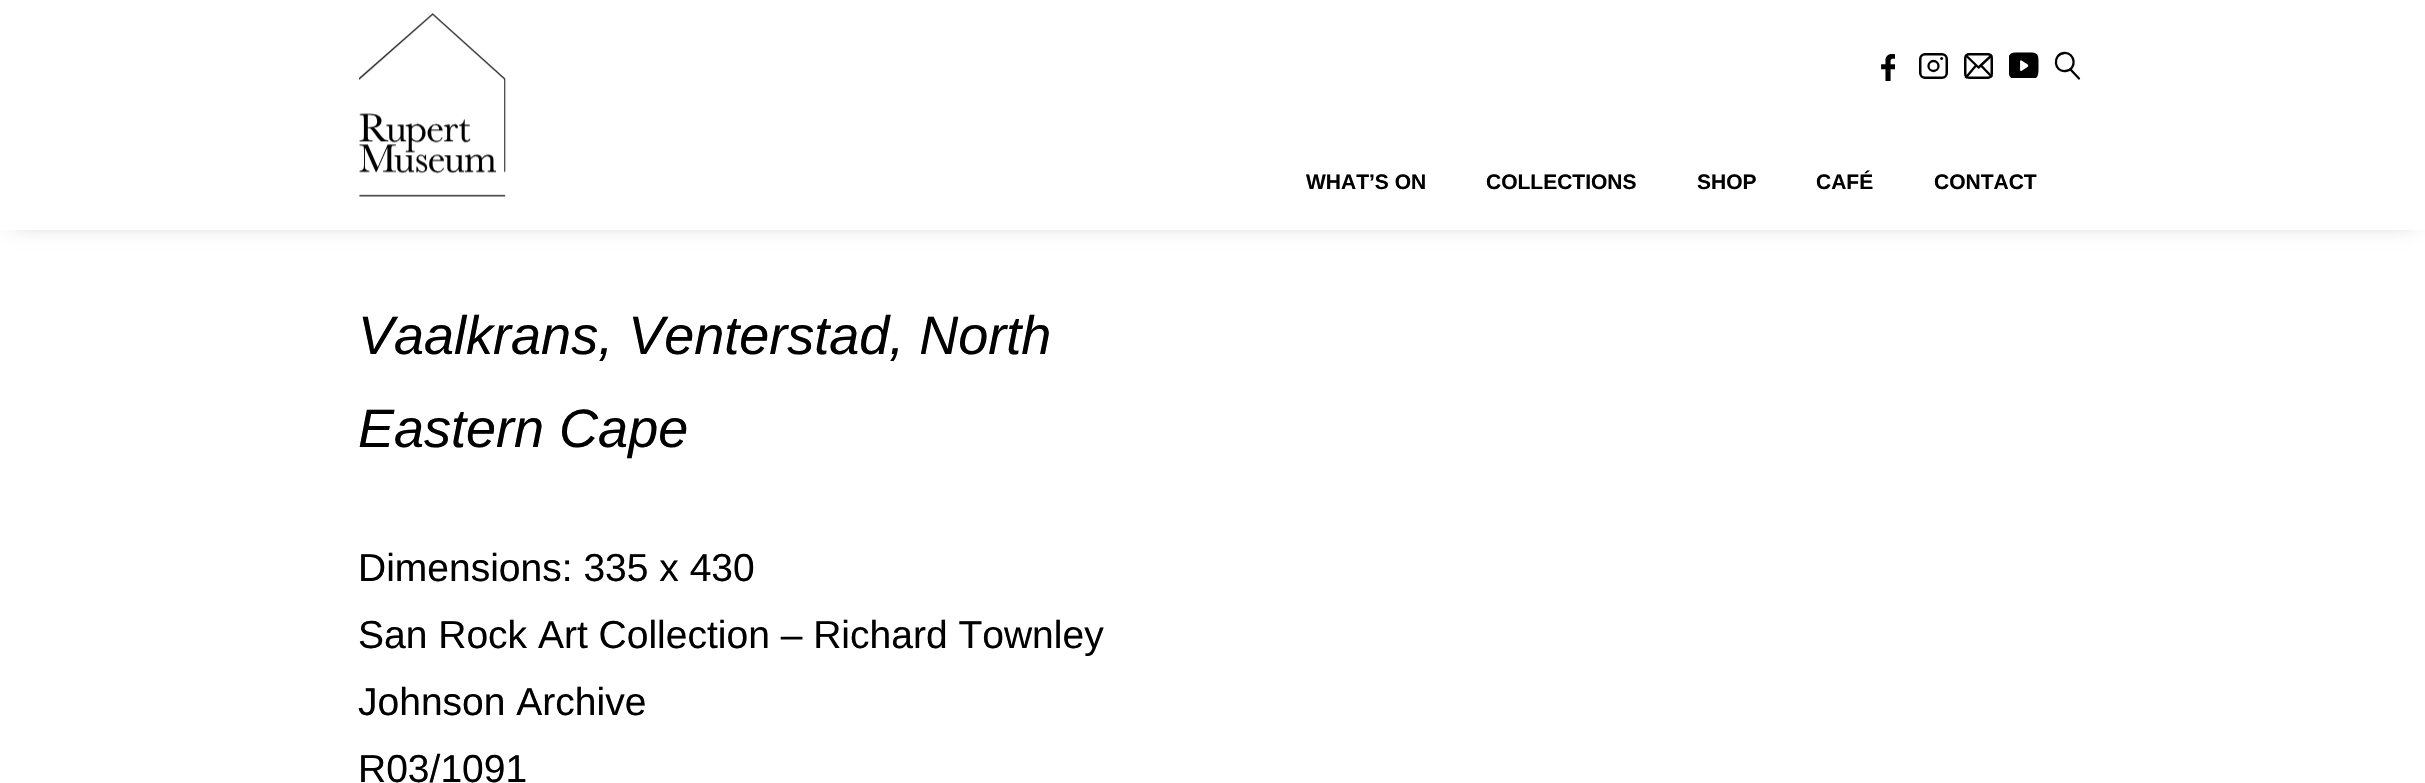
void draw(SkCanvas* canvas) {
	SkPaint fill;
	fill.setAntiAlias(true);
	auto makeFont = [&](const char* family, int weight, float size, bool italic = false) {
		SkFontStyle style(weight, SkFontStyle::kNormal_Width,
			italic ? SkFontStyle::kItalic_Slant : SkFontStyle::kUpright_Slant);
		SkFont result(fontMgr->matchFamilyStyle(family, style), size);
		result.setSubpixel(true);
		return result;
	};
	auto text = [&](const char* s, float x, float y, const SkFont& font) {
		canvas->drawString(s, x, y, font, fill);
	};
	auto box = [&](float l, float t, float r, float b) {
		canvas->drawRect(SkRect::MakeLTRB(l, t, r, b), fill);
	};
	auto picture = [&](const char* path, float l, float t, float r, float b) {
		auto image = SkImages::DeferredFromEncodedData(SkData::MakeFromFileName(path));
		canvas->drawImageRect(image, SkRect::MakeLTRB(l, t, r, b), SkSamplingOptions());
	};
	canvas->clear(0xFFFFFFFF);
	fill.setColor(0x94000000);
	fill.setMaskFilter(SkMaskFilter::MakeBlur(kNormal_SkBlurStyle, 12));
	canvas->drawRect(SkRect::MakeLTRB(15, 15, 2411, 215), fill);
	fill.setMaskFilter(nullptr);
	fill.setColor(0xFFFFFFFF);
	box(0, 0, 2425, 230);
	picture("image0.png", 359, 13, 506, 197);
	picture("image1.png", 1881, 54, 1895, 81);
	fill.setStyle(SkPaint::kStroke_Style);
	fill.setStrokeWidth(2.5f);
	fill.setColor(0xFF000000);
	canvas->drawRoundRect(SkRect::MakeLTRB(1920.25f, 54.25f, 1946.75f, 77.75f), 4.75f, 4.75f, fill);
	fill.setStrokeWidth(2.3f);
	canvas->drawCircle(1933.5f, 66, 5, fill);
	fill.setStyle(SkPaint::kFill_Style);
	canvas->drawCircle(1941.6f, 58.5f, 1.5f, fill);
	fill.setStyle(SkPaint::kStroke_Style);
	fill.setStrokeWidth(2.4f);
	fill.setStrokeJoin(SkPaint::kRound_Join);
	canvas->drawPath(SkPathBuilder().moveTo(1992, 55).lineTo(1978.5f, 67.5f).lineTo(1965.5f, 55).detach(), fill);
	fill.setStrokeJoin(SkPaint::kMiter_Join);
	canvas->drawPath(SkPathBuilder().moveTo(1965.5f, 78).lineTo(1976, 65.5f).moveTo(1992, 77).lineTo(1981, 65.5f).detach(), fill);
	fill.setStrokeWidth(2.5f);
	canvas->drawRoundRect(SkRect::MakeLTRB(1965.25f, 54.25f, 1991.75f, 77.75f), 3.75f, 3.75f, fill);
	picture("image2.png", 2009, 52, 2039, 78);
	fill.setStrokeWidth(2.3f);
	canvas->drawPath(SkPathBuilder().moveTo(2064, 53).cubicTo(2075.5f, 52, 2077.5f, 70, 2065.5f, 71).cubicTo(2054, 72.5f, 2052, 54.5f, 2064, 53).close().detach(), fill);
	fill.setStrokeCap(SkPaint::kRound_Cap);
	canvas->drawPath(SkPathBuilder().moveTo(2071, 70).lineTo(2079, 78.5f).detach(), fill);
	auto font1 = makeFont("Liberation Sans", 700, 21);
	fill.setStyle(SkPaint::kFill_Style);
	text("WHAT’S ON", 1306, 189, font1);
	text("COLLECTIONS", 1486, 189, font1);
	text("SHOP", 1697, 189, font1);
	text("CAFÉ", 1816, 189, font1);
	text("CONTACT", 1934, 189, font1);
	auto font2 = makeFont("Liberation Sans", 400, 54, true);
	text("Vaalkrans, Venterstad, North", 358, 354, font2);
	text("Eastern Cape", 358, 447, font2);
	auto font3 = makeFont("Liberation Sans", 400, 39);
	text("Dimensions: 335 x 430", 358, 581, font3);
	text("San Rock Art Collection – Richard Townley", 358, 648, font3);
	text("Johnson Archive", 358, 715, font3);
	text("R03/1091", 358, 782, font3);
}
